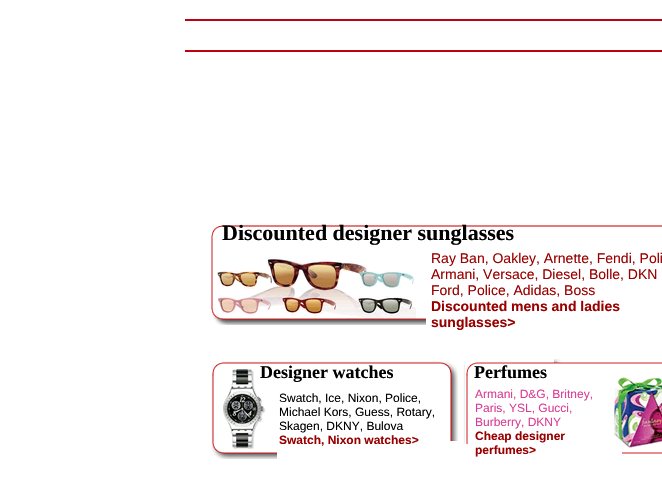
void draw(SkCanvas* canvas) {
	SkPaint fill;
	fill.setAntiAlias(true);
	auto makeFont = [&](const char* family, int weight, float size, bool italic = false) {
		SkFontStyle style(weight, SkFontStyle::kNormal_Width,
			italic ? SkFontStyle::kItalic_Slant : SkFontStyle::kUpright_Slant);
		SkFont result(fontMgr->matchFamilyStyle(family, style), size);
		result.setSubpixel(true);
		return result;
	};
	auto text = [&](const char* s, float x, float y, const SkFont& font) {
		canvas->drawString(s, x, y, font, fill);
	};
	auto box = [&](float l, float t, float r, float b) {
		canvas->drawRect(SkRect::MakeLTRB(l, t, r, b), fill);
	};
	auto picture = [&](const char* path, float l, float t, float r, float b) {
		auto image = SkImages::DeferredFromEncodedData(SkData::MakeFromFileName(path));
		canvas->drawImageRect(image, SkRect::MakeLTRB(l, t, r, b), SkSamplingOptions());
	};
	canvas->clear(0xFFFFFFFF);
	fill.setColor(0xFFBC0110);
	box(185, 19, 662, 21);
	box(185, 50, 662, 52);
	picture("image0.png", 211, 225, 662, 325);
	picture("image1.png", 211, 361, 458, 459);
	picture("image2.png", 463, 359, 662, 454);
	auto font1 = makeFont("Liberation Serif", 700, 22);
	fill.setColor(0xFF000000);
	text("Discounted designer sunglasses", 222, 240, font1);
	auto font2 = makeFont("Liberation Sans", 400, 14);
	fill.setColor(0xFF990000);
	text("Ray Ban, Oakley, Arnette, Fendi, Poli", 431, 263, font2);
	text("Armani, Versace, Diesel, Bolle, DKN", 431, 279, font2);
	text("Ford, Police, Adidas, Boss", 431, 295, font2);
	auto font3 = makeFont("Liberation Sans", 700, 14);
	text("Discounted mens and ladies", 431, 311, font3);
	text("sunglasses>", 431, 327, font3);
	auto font4 = makeFont("Liberation Serif", 700, 18);
	fill.setColor(0xFF000000);
	text("Designer watches", 260, 378, font4);
	auto font5 = makeFont("Liberation Sans", 400, 12);
	text("Swatch, Ice, Nixon, Police,", 279, 402, font5);
	text("Michael Kors, Guess, Rotary,", 279, 416, font5);
	text("Skagen, DKNY, Bulova", 279, 430, font5);
	auto font6 = makeFont("Liberation Sans", 700, 12);
	fill.setColor(0xFF990000);
	text("Swatch, Nixon watches>", 279, 444, font6);
	fill.setColor(0xFF000000);
	text("Perfumes", 474, 378, font4);
	fill.setColor(0xFFDA3E94);
	text("Armani, D&G, Britney,", 475, 398, font5);
	text("Paris, YSL, Gucci,", 475, 412, font5);
	text("Burberry, DKNY", 475, 426, font5);
	fill.setColor(0xFF990000);
	text("Cheap designer", 475, 440, font6);
	text("perfumes>", 475, 454, font6);
}
